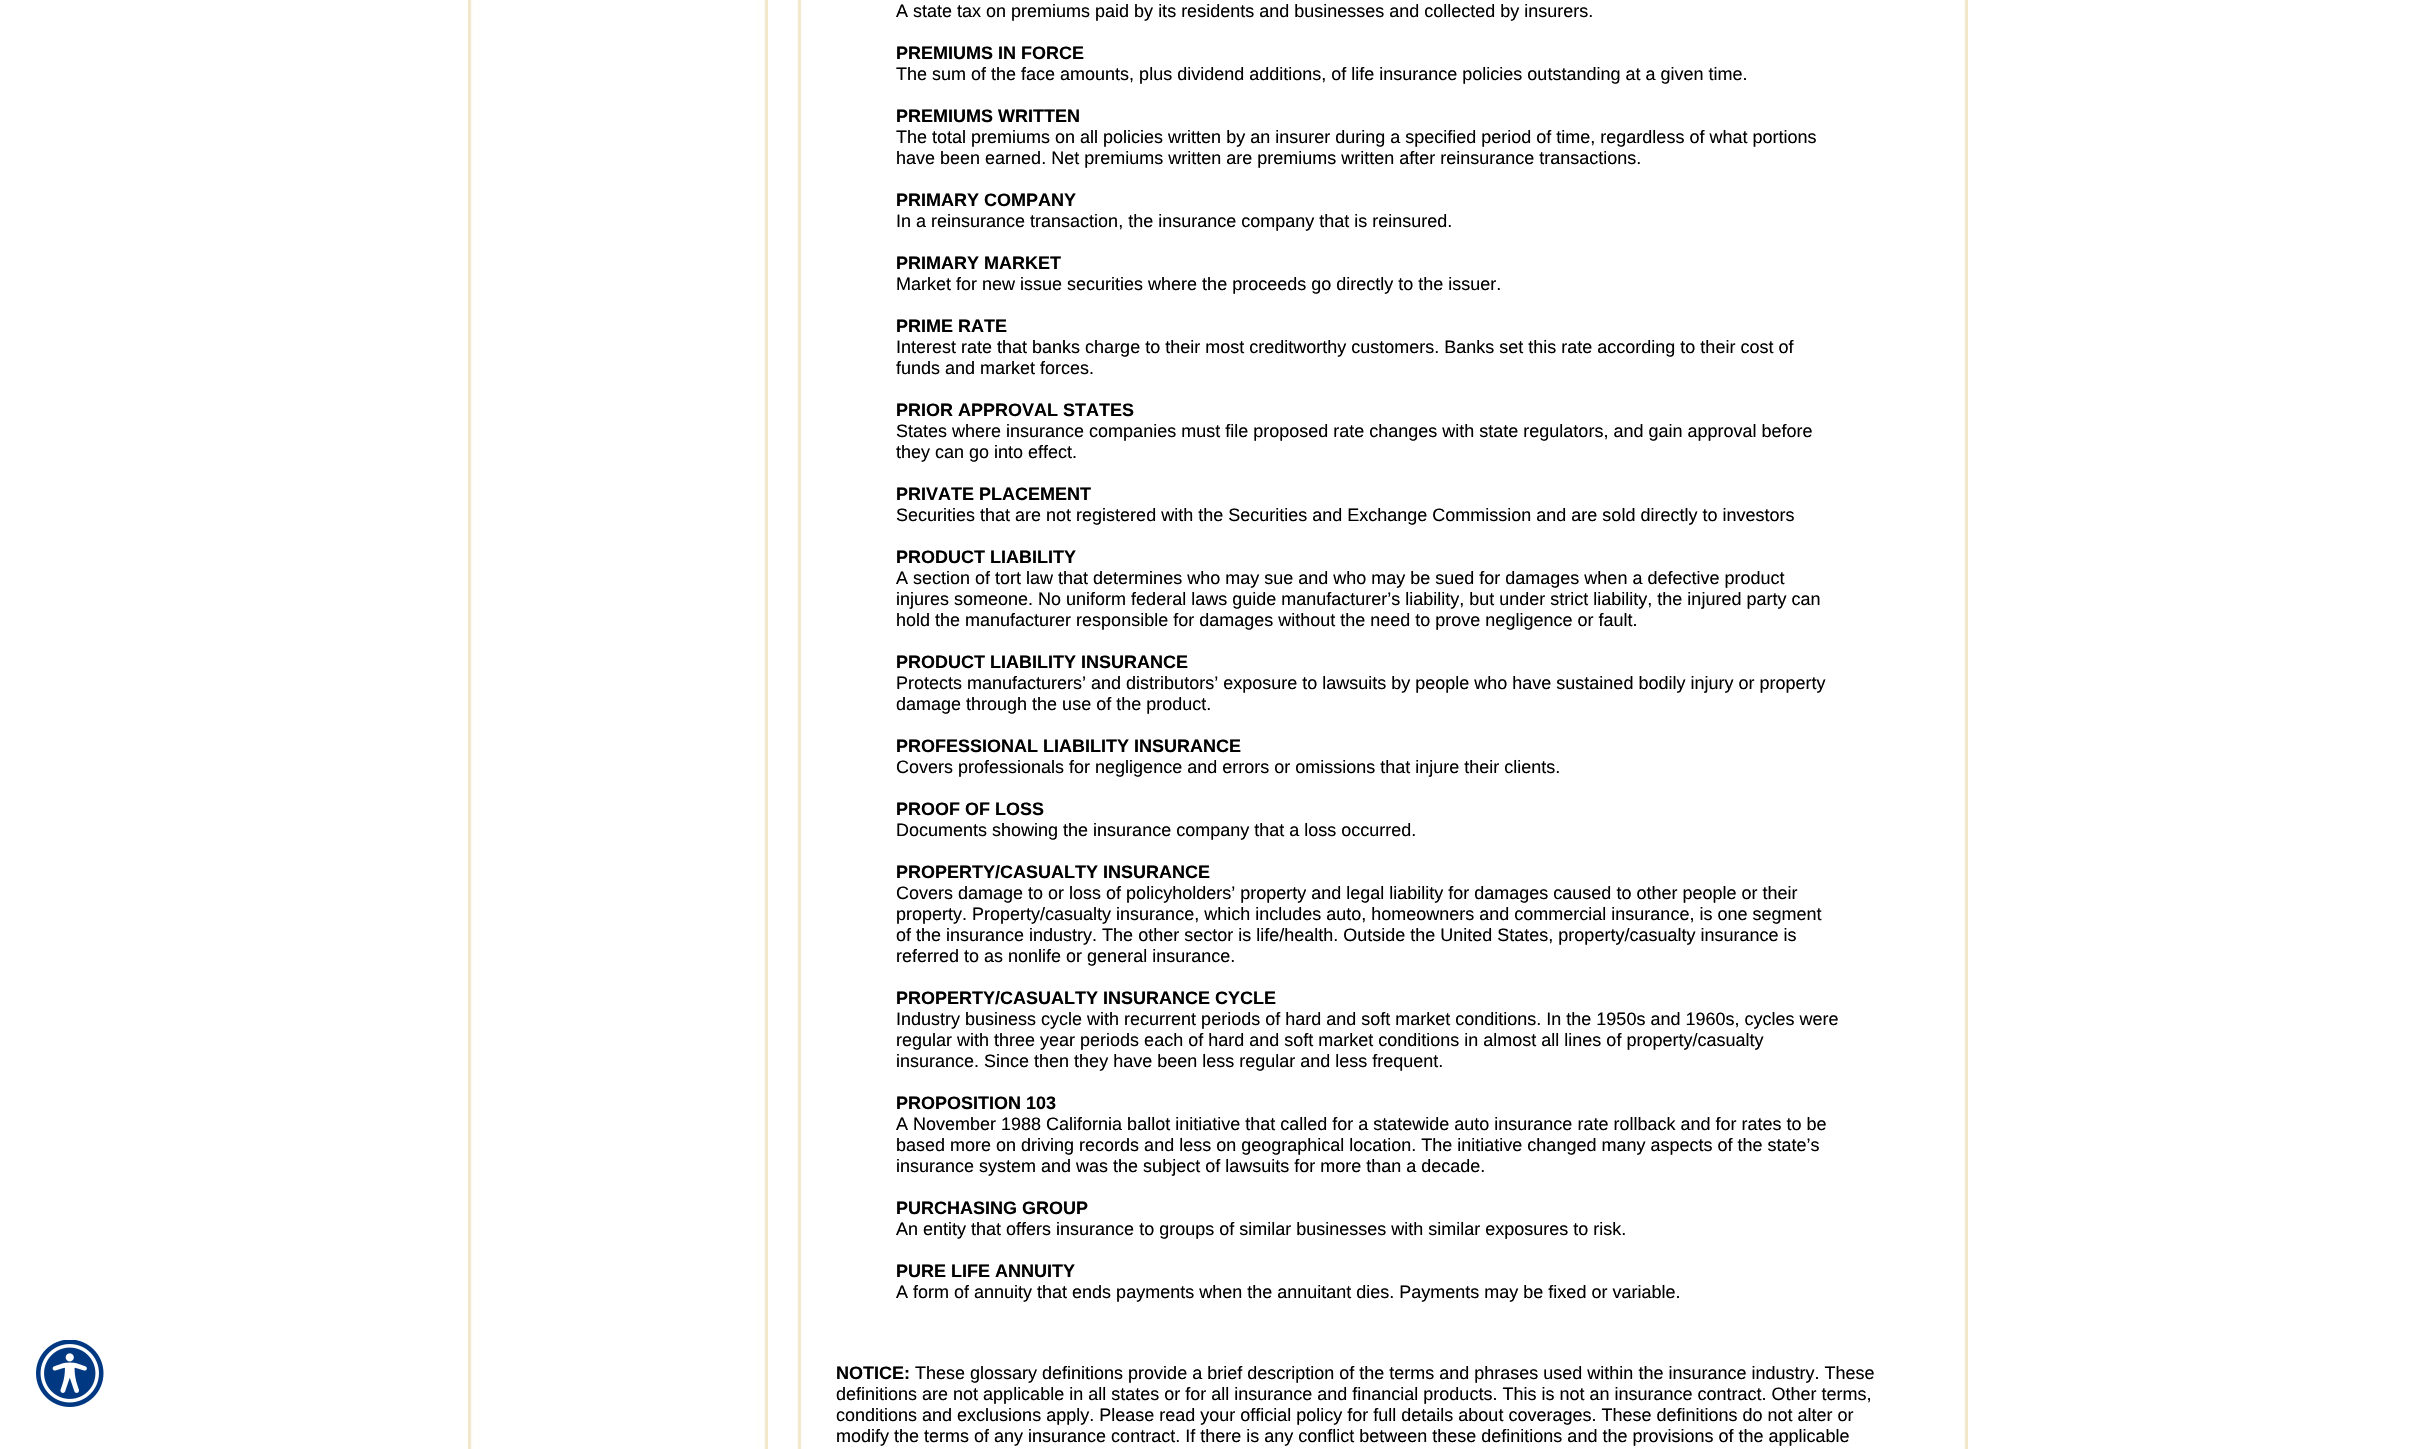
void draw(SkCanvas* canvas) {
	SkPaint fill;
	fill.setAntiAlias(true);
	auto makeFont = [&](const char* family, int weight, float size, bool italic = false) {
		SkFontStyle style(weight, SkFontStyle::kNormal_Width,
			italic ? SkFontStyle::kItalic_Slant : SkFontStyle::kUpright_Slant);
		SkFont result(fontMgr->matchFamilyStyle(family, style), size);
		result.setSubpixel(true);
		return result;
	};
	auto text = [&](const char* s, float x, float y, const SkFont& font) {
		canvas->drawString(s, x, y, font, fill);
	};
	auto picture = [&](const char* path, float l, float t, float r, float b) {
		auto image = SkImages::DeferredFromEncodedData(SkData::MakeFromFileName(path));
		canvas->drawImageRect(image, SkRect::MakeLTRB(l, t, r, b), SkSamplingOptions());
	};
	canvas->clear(0xFFFFFFFF);
	picture("image0.png", 36, 1340, 104, 1407);
	picture("image1.png", 468, 0, 768, 1449);
	picture("image2.png", 797, 0, 1968, 1449);
	auto font1 = makeFont("Liberation Sans", 400, 18);
	fill.setColor(0xFF000000);
	text("A state tax on premiums paid by its residents and businesses and collected by insurers.", 896, 17, font1);
	auto font2 = makeFont("Liberation Sans", 700, 18);
	text("PREMIUMS IN FORCE", 896, 59, font2);
	text("The sum of the face amounts, plus dividend additions, of life insurance policies outstanding at a given time.", 896, 80, font1);
	text("PREMIUMS WRITTEN", 896, 122, font2);
	text("The total premiums on all policies written by an insurer during a specified period of time, regardless of what portions", 896, 143, font1);
	text("have been earned. Net premiums written are premiums written after reinsurance transactions.", 896, 164, font1);
	text("PRIMARY COMPANY", 896, 206, font2);
	text("In a reinsurance transaction, the insurance company that is reinsured.", 896, 227, font1);
	text("PRIMARY MARKET", 896, 269, font2);
	text("Market for new issue securities where the proceeds go directly to the issuer.", 896, 290, font1);
	text("PRIME RATE", 896, 332, font2);
	text("Interest rate that banks charge to their most creditworthy customers. Banks set this rate according to their cost of", 896, 353, font1);
	text("funds and market forces.", 896, 374, font1);
	text("PRIOR APPROVAL STATES", 896, 416, font2);
	text("States where insurance companies must file proposed rate changes with state regulators, and gain approval before", 896, 437, font1);
	text("they can go into effect.", 896, 458, font1);
	text("PRIVATE PLACEMENT", 896, 500, font2);
	text("Securities that are not registered with the Securities and Exchange Commission and are sold directly to investors", 896, 521, font1);
	text("PRODUCT LIABILITY", 896, 563, font2);
	text("A section of tort law that determines who may sue and who may be sued for damages when a defective product", 896, 584, font1);
	text("injures someone. No uniform federal laws guide manufacturer’s liability, but under strict liability, the injured party can", 896, 605, font1);
	text("hold the manufacturer responsible for damages without the need to prove negligence or fault.", 896, 626, font1);
	text("PRODUCT LIABILITY INSURANCE", 896, 668, font2);
	text("Protects manufacturers’ and distributors’ exposure to lawsuits by people who have sustained bodily injury or property", 896, 689, font1);
	text("damage through the use of the product.", 896, 710, font1);
	text("PROFESSIONAL LIABILITY INSURANCE", 896, 752, font2);
	text("Covers professionals for negligence and errors or omissions that injure their clients.", 896, 773, font1);
	text("PROOF OF LOSS", 896, 815, font2);
	text("Documents showing the insurance company that a loss occurred.", 896, 836, font1);
	text("PROPERTY/CASUALTY INSURANCE", 896, 878, font2);
	text("Covers damage to or loss of policyholders’ property and legal liability for damages caused to other people or their", 896, 899, font1);
	text("property. Property/casualty insurance, which includes auto, homeowners and commercial insurance, is one segment", 896, 920, font1);
	text("of the insurance industry. The other sector is life/health. Outside the United States, property/casualty insurance is", 896, 941, font1);
	text("referred to as nonlife or general insurance.", 896, 962, font1);
	text("PROPERTY/CASUALTY INSURANCE CYCLE", 896, 1004, font2);
	text("Industry business cycle with recurrent periods of hard and soft market conditions. In the 1950s and 1960s, cycles were", 896, 1025, font1);
	text("regular with three year periods each of hard and soft market conditions in almost all lines of property/casualty", 896, 1046, font1);
	text("insurance. Since then they have been less regular and less frequent.", 896, 1067, font1);
	text("PROPOSITION 103", 896, 1109, font2);
	text("A November 1988 California ballot initiative that called for a statewide auto insurance rate rollback and for rates to be", 896, 1130, font1);
	text("based more on driving records and less on geographical location. The initiative changed many aspects of the state’s", 896, 1151, font1);
	text("insurance system and was the subject of lawsuits for more than a decade.", 896, 1172, font1);
	text("PURCHASING GROUP", 896, 1214, font2);
	text("An entity that offers insurance to groups of similar businesses with similar exposures to risk.", 896, 1235, font1);
	text("PURE LIFE ANNUITY", 896, 1277, font2);
	text("A form of annuity that ends payments when the annuitant dies. Payments may be fixed or variable.", 896, 1298, font1);
	text("NOTICE:", 836, 1379, font2);
	text("These glossary definitions provide a brief description of the terms and phrases used within the insurance industry. These", 915, 1379, font1);
	text("definitions are not applicable in all states or for all insurance and financial products. This is not an insurance contract. Other terms,", 836, 1400, font1);
	text("conditions and exclusions apply. Please read your official policy for full details about coverages. These definitions do not alter or", 836, 1421, font1);
	text("modify the terms of any insurance contract. If there is any conflict between these definitions and the provisions of the applicable", 836, 1442, font1);
}
